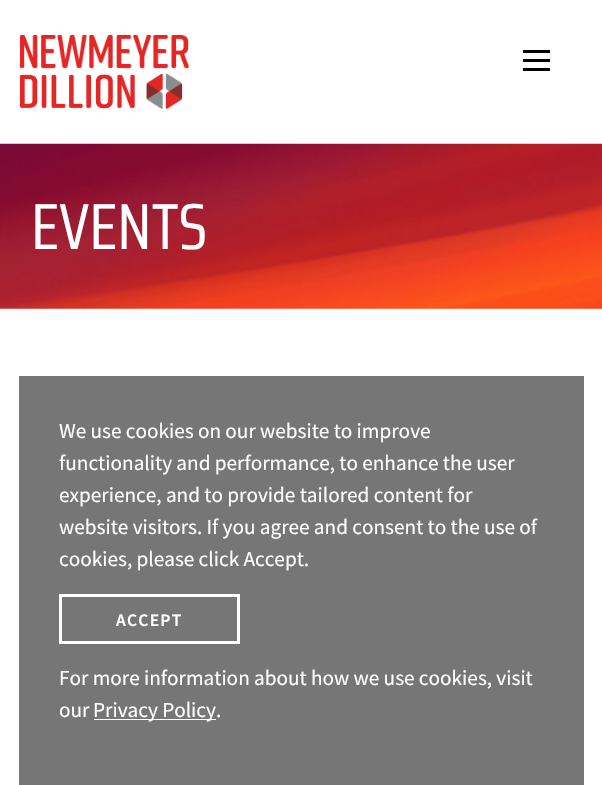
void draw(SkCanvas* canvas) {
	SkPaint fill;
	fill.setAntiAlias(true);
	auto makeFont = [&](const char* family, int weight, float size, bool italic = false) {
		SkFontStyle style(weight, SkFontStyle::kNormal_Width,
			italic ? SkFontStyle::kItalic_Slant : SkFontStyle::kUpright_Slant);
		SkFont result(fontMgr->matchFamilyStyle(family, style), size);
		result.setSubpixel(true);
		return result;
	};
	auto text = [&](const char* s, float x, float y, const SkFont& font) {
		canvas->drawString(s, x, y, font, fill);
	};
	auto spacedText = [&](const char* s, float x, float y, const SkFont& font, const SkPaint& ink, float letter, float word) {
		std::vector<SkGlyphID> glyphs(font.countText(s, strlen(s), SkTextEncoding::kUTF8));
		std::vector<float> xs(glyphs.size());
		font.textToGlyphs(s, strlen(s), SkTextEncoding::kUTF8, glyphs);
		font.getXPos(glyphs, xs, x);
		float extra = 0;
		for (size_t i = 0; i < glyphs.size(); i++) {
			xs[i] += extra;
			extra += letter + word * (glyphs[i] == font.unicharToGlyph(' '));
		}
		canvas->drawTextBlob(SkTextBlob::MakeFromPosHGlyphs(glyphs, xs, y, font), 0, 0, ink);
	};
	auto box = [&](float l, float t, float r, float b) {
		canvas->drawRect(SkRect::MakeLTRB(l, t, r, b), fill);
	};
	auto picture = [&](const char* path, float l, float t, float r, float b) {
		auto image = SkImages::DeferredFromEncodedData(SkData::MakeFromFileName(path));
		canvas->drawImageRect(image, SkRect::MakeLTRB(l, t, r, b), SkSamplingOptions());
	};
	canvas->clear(0xFFFFFFFF);
	picture("image0.png", 20, 35, 189, 109);
	fill.setColor(0xFF000000);
	box(523, 68, 550, 71);
	box(523, 59, 550, 62);
	box(523, 50, 550, 53);
	picture("image1.png", 0, 143, 602, 309);
	fill.setColor(0xFF767676);
	box(19, 376, 584, 785);
	fill.setStyle(SkPaint::kStroke_Style);
	fill.setStrokeWidth(3);
	fill.setColor(0xFFFFFFFF);
	canvas->drawRect(SkRect::MakeLTRB(60.5f, 595.5f, 238.5f, 642.5f), fill);
	fill.setStyle(SkPaint::kFill_Style);
	box(94, 719, 216, 720);
	auto font1 = makeFont("Saira Condensed", 400, 65);
	text("EVENTS", 31, 249, font1);
	auto font2 = makeFont("Source Sans Pro", 400, 21.25f);
	text("We use cookies on our website to improve", 59, 438, font2);
	text("functionality and performance, to enhance the user", 59, 470, font2);
	text("experience, and to provide tailored content for", 59, 502, font2);
	text("website visitors. If you agree and consent to the use of", 59, 534, font2);
	text("cookies, please click Accept.", 59, 566, font2);
	auto font3 = makeFont("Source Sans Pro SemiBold", 600, 17.5f);
	spacedText("ACCEPT", 116, 626, font3, fill, 1.25f, 0);
	text("For more information about how we use cookies, visit", 59, 685, font2);
	text("our", 59, 717, font2);
	text("Privacy Policy.", 93, 717, font2);
}
